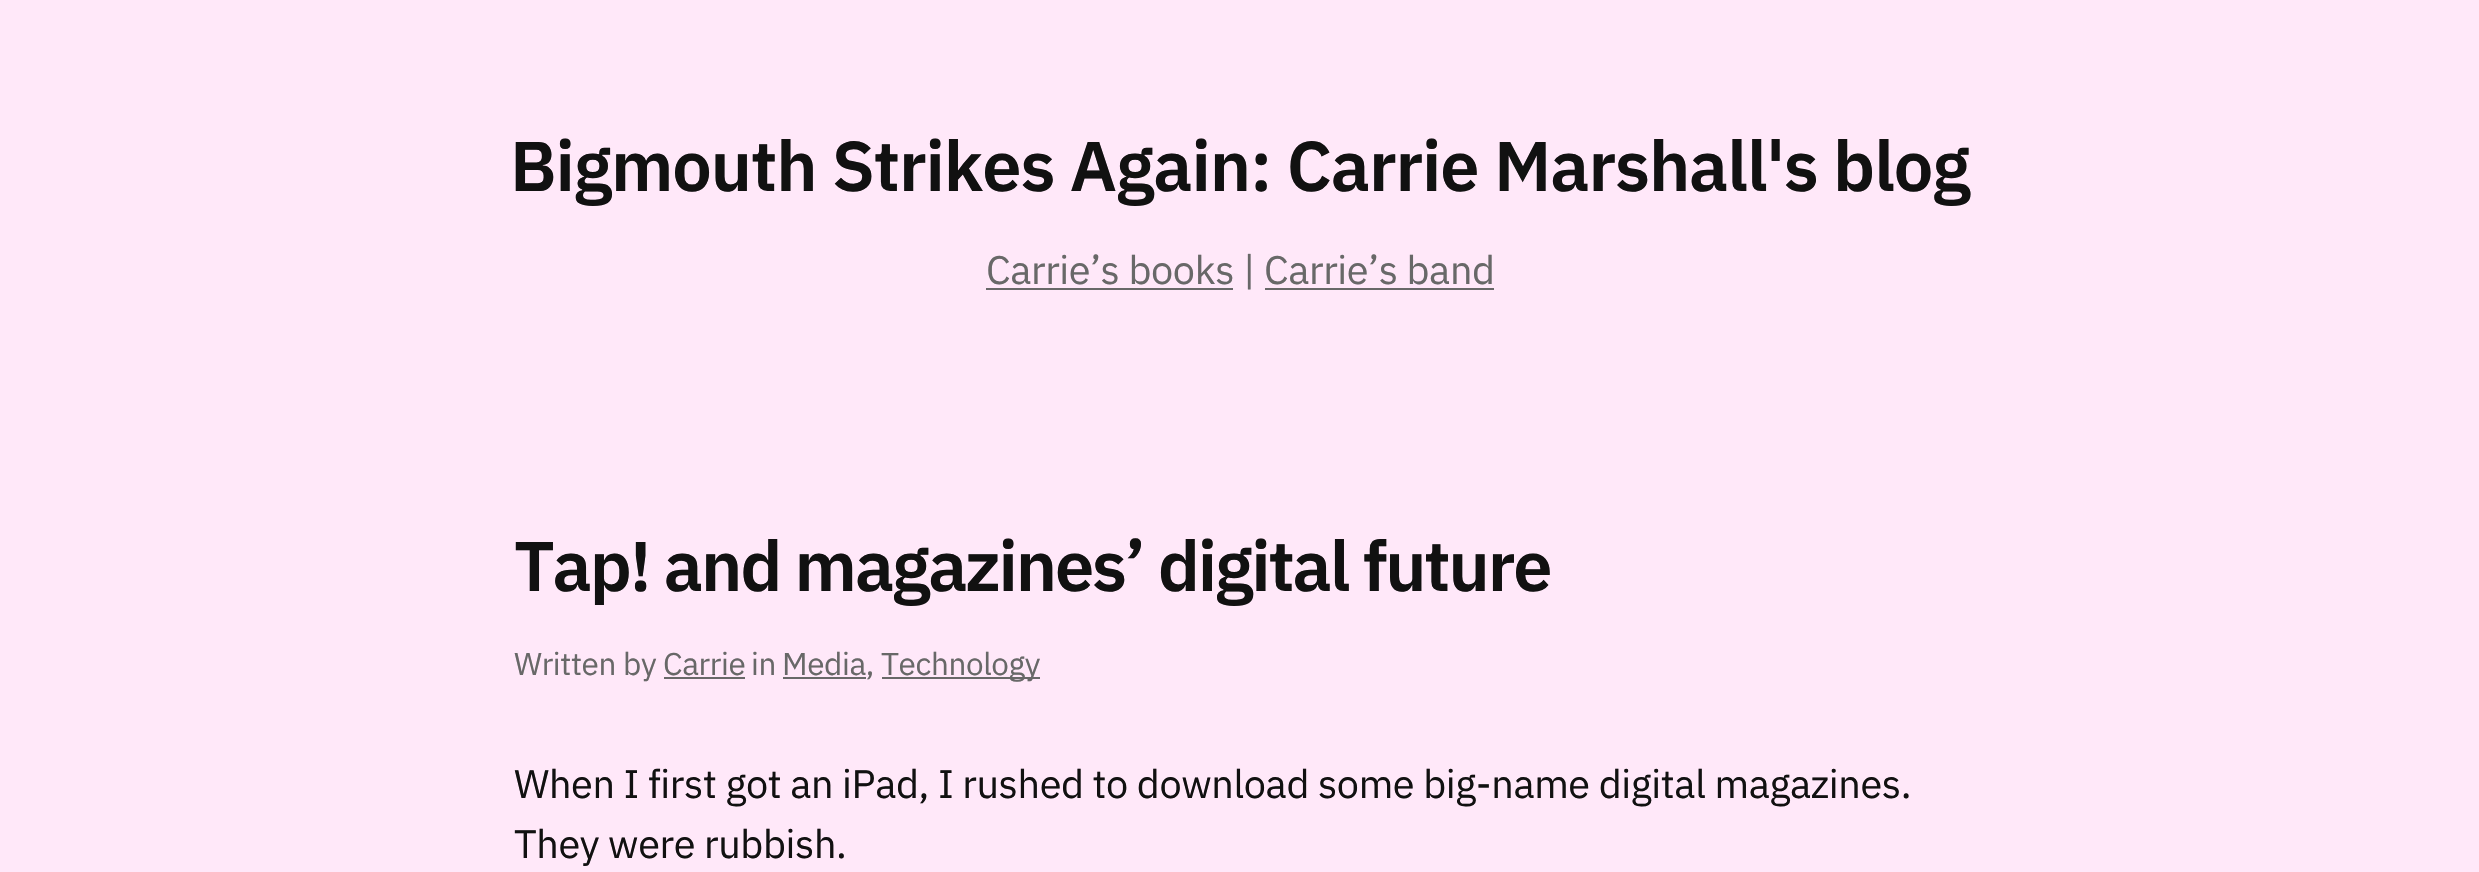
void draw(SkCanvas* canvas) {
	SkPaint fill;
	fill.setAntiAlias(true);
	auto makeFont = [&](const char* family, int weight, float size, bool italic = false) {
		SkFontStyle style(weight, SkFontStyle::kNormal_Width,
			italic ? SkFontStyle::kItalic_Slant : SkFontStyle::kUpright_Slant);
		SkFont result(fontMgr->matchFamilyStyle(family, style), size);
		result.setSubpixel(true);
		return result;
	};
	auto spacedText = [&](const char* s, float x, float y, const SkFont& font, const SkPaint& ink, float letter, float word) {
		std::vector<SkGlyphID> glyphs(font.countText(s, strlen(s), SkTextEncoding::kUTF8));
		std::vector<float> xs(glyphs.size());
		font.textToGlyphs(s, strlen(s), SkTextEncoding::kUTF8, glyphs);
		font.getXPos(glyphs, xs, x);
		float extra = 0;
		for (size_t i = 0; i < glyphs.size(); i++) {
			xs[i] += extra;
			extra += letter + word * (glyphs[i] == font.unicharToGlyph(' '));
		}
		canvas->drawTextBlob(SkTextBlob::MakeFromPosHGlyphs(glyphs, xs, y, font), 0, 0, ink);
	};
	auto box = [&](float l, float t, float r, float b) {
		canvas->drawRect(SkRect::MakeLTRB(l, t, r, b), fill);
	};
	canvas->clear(0xFFFFE8F9);
	fill.setColor(0xFF686868);
	box(986, 288, 1233, 290);
	box(1265, 288, 1494, 290);
	box(664, 677, 745, 679);
	box(783, 677, 866, 679);
	box(882, 677, 1040, 679);
	auto font1 = makeFont("IBM Plex Sans", 600, 70.3f);
	fill.setColor(0xFF111111);
	spacedText("Bigmouth Strikes Again: Carrie Marshall's blog", 510, 191, font1, fill, -1.1f, 0);
	auto font2 = makeFont("IBM Plex Sans", 400, 39.65f);
	fill.setColor(0xFF686868);
	spacedText("Carrie’s books | Carrie’s band", 986, 284, font2, fill, -0.4f, 0);
	fill.setColor(0xFF111111);
	spacedText("Tap! and magazines’ digital future", 514, 591, font1, fill, -2.15f, 0);
	auto font3 = makeFont("IBM Plex Sans", 400, 31.5f);
	fill.setColor(0xFF686868);
	spacedText("Written by", 514, 675, font3, fill, -0.4f, 0);
	spacedText("Carrie", 663, 675, font3, fill, -0.4f, 0);
	spacedText("in", 751, 675, font3, fill, -0.4f, 0);
	spacedText("Media,", 782, 675, font3, fill, -0.4f, 0);
	spacedText("Technology", 881, 675, font3, fill, -0.4f, 0);
	fill.setColor(0xFF111111);
	spacedText("When I first got an iPad, I rushed to download some big-name digital magazines.", 514, 798, font2, fill, -0.4f, 0);
	spacedText("They were rubbish.", 514, 858, font2, fill, -0.4f, 0);
}
